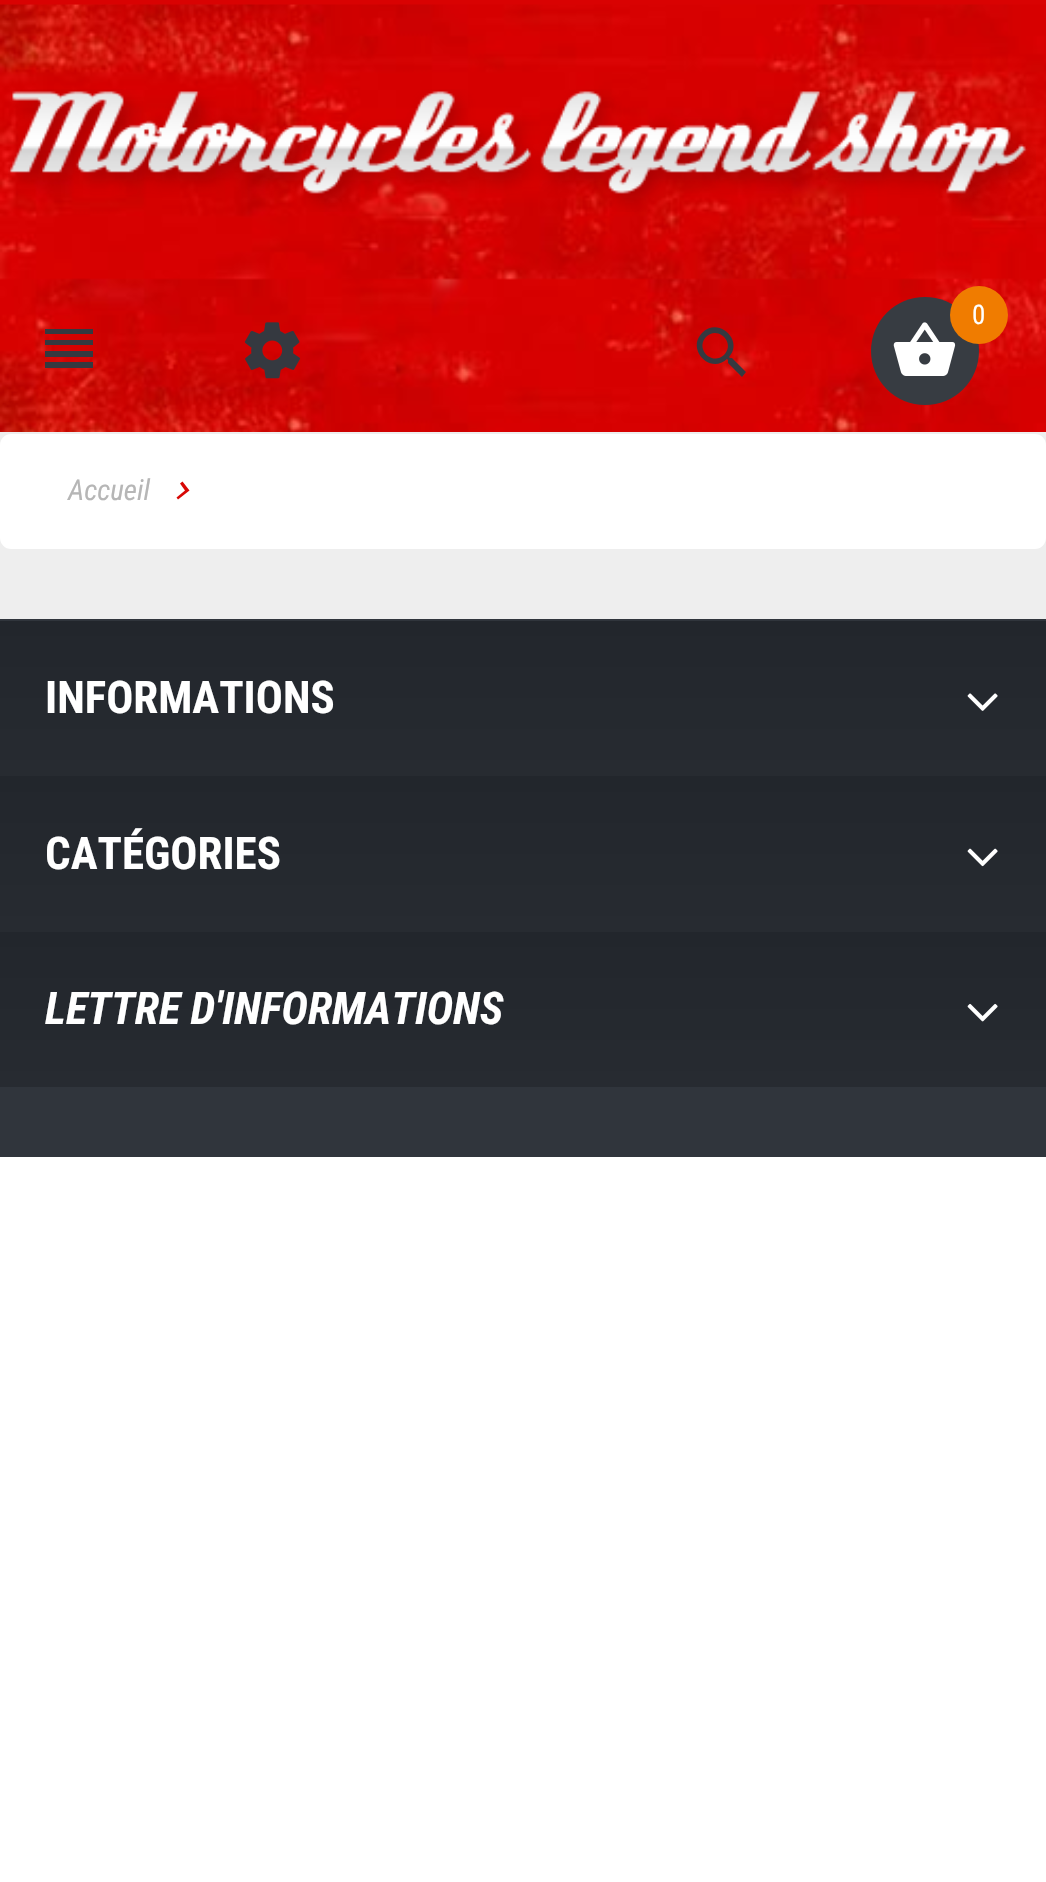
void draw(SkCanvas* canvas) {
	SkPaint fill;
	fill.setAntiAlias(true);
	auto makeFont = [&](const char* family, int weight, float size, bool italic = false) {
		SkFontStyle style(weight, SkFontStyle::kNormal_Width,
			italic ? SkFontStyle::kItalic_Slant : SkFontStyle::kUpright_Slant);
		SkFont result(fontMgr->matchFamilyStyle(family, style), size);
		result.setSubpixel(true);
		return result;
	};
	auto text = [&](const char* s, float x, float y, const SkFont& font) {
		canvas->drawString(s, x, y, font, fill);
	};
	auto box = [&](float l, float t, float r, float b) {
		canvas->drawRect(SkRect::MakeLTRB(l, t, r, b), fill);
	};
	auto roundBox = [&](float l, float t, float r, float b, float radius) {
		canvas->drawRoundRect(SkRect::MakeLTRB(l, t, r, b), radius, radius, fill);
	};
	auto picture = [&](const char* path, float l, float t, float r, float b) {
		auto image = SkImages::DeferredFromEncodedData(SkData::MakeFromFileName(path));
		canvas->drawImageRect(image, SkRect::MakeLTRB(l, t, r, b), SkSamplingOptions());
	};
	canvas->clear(0xFFFFFFFF);
	fill.setColor(0xFFD90202);
	box(0, 0, 1046, 5);
	picture("image1.png", 0, 4, 1046, 432);
	picture("image0.png", 244, 322, 301, 379);
	picture("image2.png", 8, 89, 1036, 212);
	fill.setColor(0xFF373C42);
	canvas->drawCircle(925, 351, 54, fill);
	picture("image3.png", 893, 322, 956, 376);
	fill.setColor(0xFFF07C00);
	canvas->drawCircle(979, 315, 29, fill);
	fill.setColor(0xFF353940);
	canvas->drawPath(SkPathBuilder().moveTo(45, 357).lineTo(93, 357).lineTo(93, 351).lineTo(45, 351).close().moveTo(45, 368).lineTo(93, 368).lineTo(93, 362).lineTo(45, 362).close().moveTo(45, 345).lineTo(93, 345).lineTo(93, 340).lineTo(45, 340).close().moveTo(45, 329).lineTo(45, 334).lineTo(93, 334).lineTo(93, 329).close().detach(), fill);
	canvas->drawPath(SkPathBuilder().moveTo(732, 358).lineTo(730, 358).lineTo(729, 357).cubicTo(744, 341, 719, 316, 702, 333).cubicTo(686, 349, 710, 375, 727, 359).lineTo(728, 360).lineTo(728, 363).lineTo(742, 377).lineTo(746, 372).close().moveTo(724, 355).cubicTo(712, 366, 695, 349, 706, 337).cubicTo(718, 325, 736, 343, 724, 355).close().detach(), fill);
	fill.setColor(0xFFEEEEEE);
	box(0, 432, 1046, 619);
	fill.setColor(0xFFFFFFFF);
	roundBox(0, 434, 1046, 549, 11);
	fill.setColor(0xFFD80805);
	canvas->drawPath(SkPathBuilder().moveTo(182.5f, 481.5f).lineTo(180, 483.5f).lineTo(185, 490.5f).lineTo(176.5f, 497.5f).lineTo(178, 499.5f).lineTo(189.5f, 490.5f).close().detach(), fill);
	fill.setColor(0xFF30353C);
	box(0, 619, 1046, 1157);
	{
		const SkColor colors[] = {0xFF22262C, 0xFF272B31};
		const float stops[] = {0, 1};
		const SkPoint ends[] = {{523, 621}, {523, 776}};
		fill.setShader(SkGradientShader::MakeLinear(ends, colors, stops, 2, SkTileMode::kClamp));
		fill.setAlpha(255);
	}
	box(0, 621, 1046, 776);
	picture("image4.png", 967, 693, 998, 711);
	{
		const SkColor colors[] = {0xFF22262C, 0xFF272B31};
		const float stops[] = {0, 1};
		const SkPoint ends[] = {{523, 776}, {523, 932}};
		fill.setShader(SkGradientShader::MakeLinear(ends, colors, stops, 2, SkTileMode::kClamp));
		fill.setAlpha(255);
	}
	box(0, 776, 1046, 932);
	picture("image5.png", 967, 848, 998, 867);
	{
		const SkColor colors[] = {0xFF22262C, 0xFF272B31};
		const float stops[] = {0, 1};
		const SkPoint ends[] = {{523, 932}, {523, 1087}};
		fill.setShader(SkGradientShader::MakeLinear(ends, colors, stops, 2, SkTileMode::kClamp));
		fill.setAlpha(255);
	}
	box(0, 932, 1046, 1087);
	picture("image6.png", 967, 1003, 998, 1022);
	auto font1 = makeFont("Roboto Condensed", 400, 27);
	fill.setShader(nullptr);
	fill.setColor(0xFFFFFFFF);
	text("0", 972, 324, font1);
	auto font2 = makeFont("Roboto Condensed", 400, 29, true);
	fill.setColor(0xFFB6B6B6);
	text("Accueil", 68, 500, font2);
	auto font3 = makeFont("Roboto Condensed", 700, 45);
	fill.setColor(0xFFFFFFFF);
	text("INFORMATIONS", 45, 713, font3);
	text("CATÉGORIES", 45, 869, font3);
	auto font4 = makeFont("Roboto Condensed", 700, 45, true);
	text("LETTRE D'INFORMATIONS", 45, 1024, font4);
}
